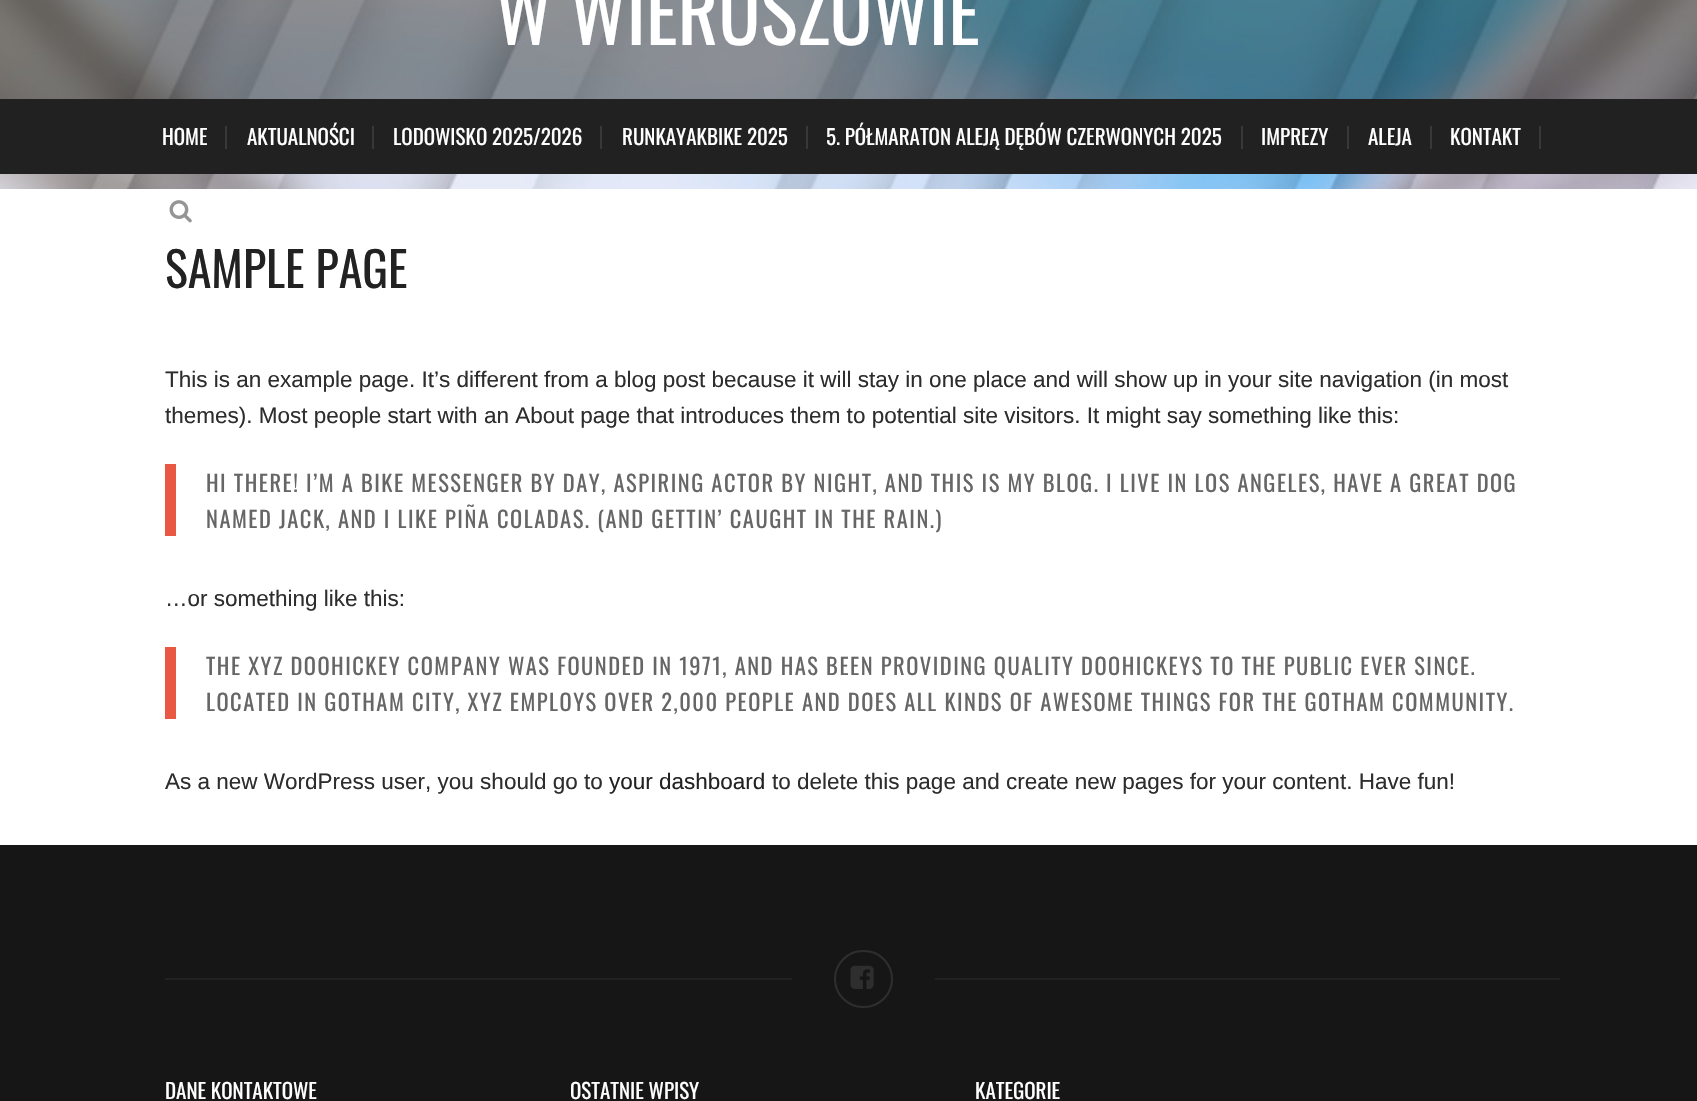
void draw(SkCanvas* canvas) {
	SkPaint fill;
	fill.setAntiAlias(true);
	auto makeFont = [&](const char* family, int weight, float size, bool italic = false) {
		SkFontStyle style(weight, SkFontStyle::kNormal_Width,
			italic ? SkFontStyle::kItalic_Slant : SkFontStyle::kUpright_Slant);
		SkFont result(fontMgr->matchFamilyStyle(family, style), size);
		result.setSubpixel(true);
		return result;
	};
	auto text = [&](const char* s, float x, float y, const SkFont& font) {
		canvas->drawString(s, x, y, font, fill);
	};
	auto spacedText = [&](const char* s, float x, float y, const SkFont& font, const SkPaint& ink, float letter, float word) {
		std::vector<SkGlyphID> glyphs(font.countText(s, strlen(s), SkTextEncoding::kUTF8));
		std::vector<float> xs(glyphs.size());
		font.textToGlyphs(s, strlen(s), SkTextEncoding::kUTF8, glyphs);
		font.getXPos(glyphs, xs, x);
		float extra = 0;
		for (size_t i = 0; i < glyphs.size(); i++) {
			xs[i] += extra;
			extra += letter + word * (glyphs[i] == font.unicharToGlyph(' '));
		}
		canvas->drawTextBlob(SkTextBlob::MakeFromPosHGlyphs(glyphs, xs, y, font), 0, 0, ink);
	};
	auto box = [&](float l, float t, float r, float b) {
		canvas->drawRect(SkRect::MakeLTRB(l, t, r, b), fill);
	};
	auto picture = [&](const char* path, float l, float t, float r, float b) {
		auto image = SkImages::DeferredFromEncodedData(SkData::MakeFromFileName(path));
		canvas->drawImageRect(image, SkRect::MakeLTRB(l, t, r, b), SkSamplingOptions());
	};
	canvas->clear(0xFFFFFFFF);
	picture("image0.png", 0, 0, 1697, 189);
	fill.setColor(0x66000000);
	box(0, 0, 1697, 99);
	fill.setColor(0xFF212121);
	box(0, 99, 1697, 174);
	fill.setColor(0xFF383838);
	box(225, 126, 227, 149);
	box(372, 126, 374, 149);
	box(600, 126, 602, 149);
	box(806, 126, 808, 149);
	box(1241, 126, 1243, 149);
	box(1347, 126, 1349, 149);
	box(1430, 126, 1432, 149);
	box(1539, 126, 1541, 149);
	picture("image1.png", 169, 200, 192, 223);
	fill.setColor(0xFFE95842);
	box(165, 464, 176, 536);
	box(165, 647, 176, 719);
	fill.setColor(0xFF161616);
	box(0, 845, 1697, 1101);
	fill.setColor(0xFF222222);
	box(165, 978, 792, 980);
	fill.setStyle(SkPaint::kStroke_Style);
	fill.setStrokeWidth(2);
	fill.setColor(0xFF2E2E2E);
	canvas->drawRoundRect(SkRect::MakeLTRB(835, 951, 892, 1007), 28, 28, fill);
	picture("image2.png", 850, 965, 874, 989);
	fill.setStyle(SkPaint::kFill_Style);
	fill.setColor(0xFF222222);
	box(935, 978, 1560, 980);
	auto font1 = makeFont("Oswald", 400, 78);
	fill.setColor(0xFFFFFFFF);
	text("W WIERUSZOWIE", 495, 45, font1);
	auto font2 = makeFont("Oswald", 400, 21);
	text("HOME", 162, 145, font2);
	text("AKTUALNOŚCI", 247, 145, font2);
	text("LODOWISKO 2025/2026", 393, 145, font2);
	text("RUNKAYAKBIKE 2025", 622, 145, font2);
	text("5. PÓŁMARATON ALEJĄ DĘBÓW CZERWONYCH 2025", 826, 145, font2);
	text("IMPREZY", 1261, 145, font2);
	text("ALEJA", 1368, 145, font2);
	text("KONTAKT", 1450, 145, font2);
	auto font3 = makeFont("Oswald", 400, 48);
	fill.setColor(0xFF222222);
	text("SAMPLE PAGE", 165, 288, font3);
	auto font4 = makeFont("Liberation Sans", 400, 22.5f);
	fill.setColor(0xFF2D2D2D);
	text("This is an example page. It’s different from a blog post because it will stay in one place and will show up in your site navigation (in most", 165, 387, font4);
	text("themes). Most people start with an About page that introduces them to potential site visitors. It might say something like this:", 165, 423, font4);
	auto font5 = makeFont("Oswald", 400, 22.5f);
	fill.setColor(0xFF666666);
	spacedText("HI THERE! I’M A BIKE MESSENGER BY DAY, ASPIRING ACTOR BY NIGHT, AND THIS IS MY BLOG. I LIVE IN LOS ANGELES, HAVE A GREAT DOG", 206, 492, font5, fill, 1.5f, 0);
	spacedText("NAMED JACK, AND I LIKE PIÑA COLADAS. (AND GETTIN’ CAUGHT IN THE RAIN.)", 206, 528, font5, fill, 1.5f, 0);
	fill.setColor(0xFF2D2D2D);
	text("…or something like this:", 165, 606, font4);
	fill.setColor(0xFF666666);
	spacedText("THE XYZ DOOHICKEY COMPANY WAS FOUNDED IN 1971, AND HAS BEEN PROVIDING QUALITY DOOHICKEYS TO THE PUBLIC EVER SINCE.", 206, 675, font5, fill, 1.5f, 0);
	spacedText("LOCATED IN GOTHAM CITY, XYZ EMPLOYS OVER 2,000 PEOPLE AND DOES ALL KINDS OF AWESOME THINGS FOR THE GOTHAM COMMUNITY.", 206, 711, font5, fill, 1.5f, 0);
	fill.setColor(0xFF2D2D2D);
	text("As a new WordPress user, you should go to", 165, 789, font4);
	fill.setColor(0xFF222222);
	text("your dashboard", 609, 789, font4);
	fill.setColor(0xFF2D2D2D);
	text("to delete this page and create new pages for your content. Have fun!", 772, 789, font4);
	fill.setColor(0xFFFFFFFF);
	text("DANE KONTAKTOWE", 165, 1099, font2);
	text("OSTATNIE WPISY", 570, 1099, font2);
	text("KATEGORIE", 975, 1099, font2);
}
